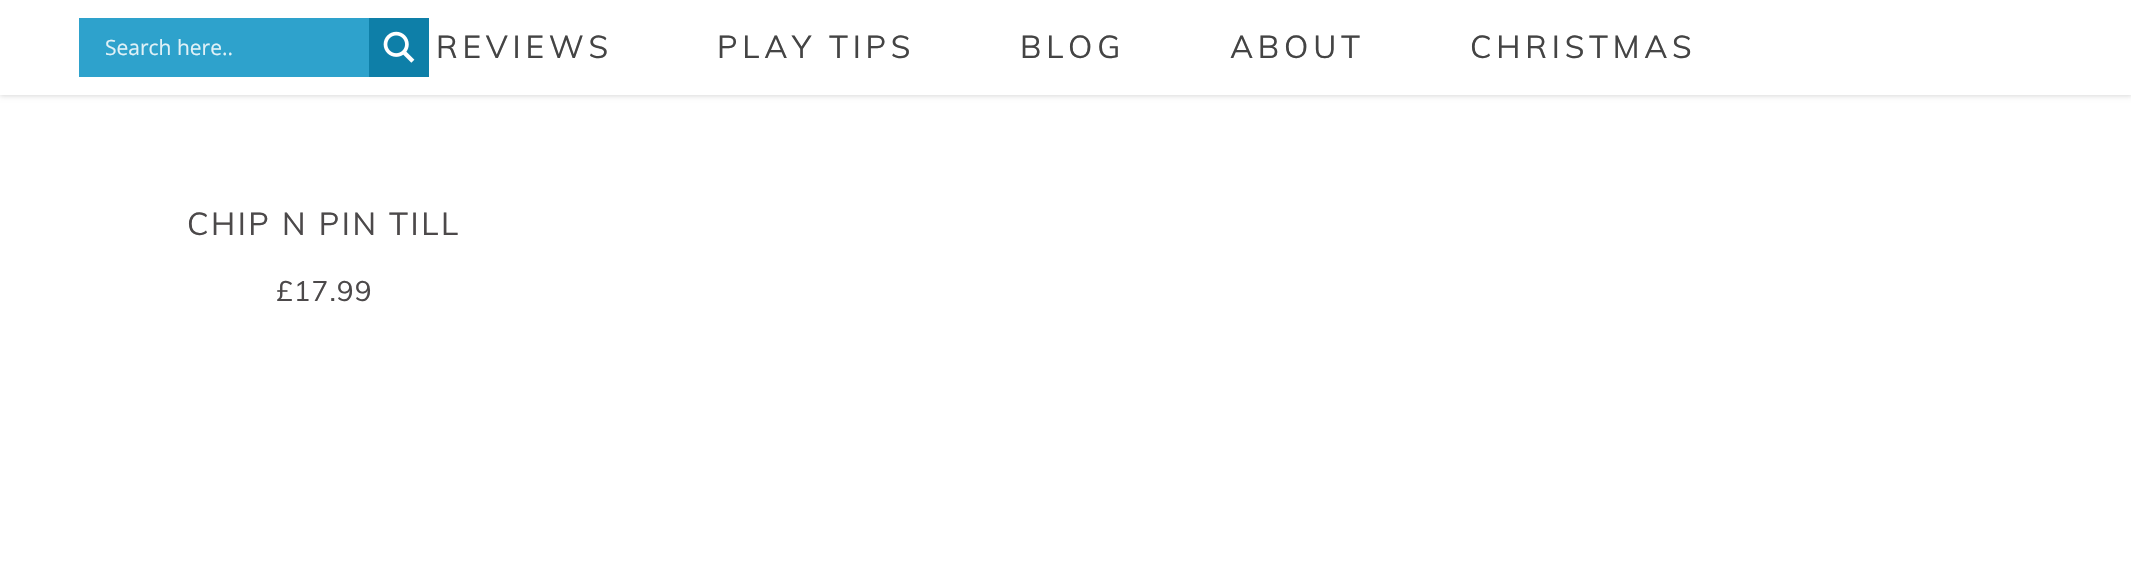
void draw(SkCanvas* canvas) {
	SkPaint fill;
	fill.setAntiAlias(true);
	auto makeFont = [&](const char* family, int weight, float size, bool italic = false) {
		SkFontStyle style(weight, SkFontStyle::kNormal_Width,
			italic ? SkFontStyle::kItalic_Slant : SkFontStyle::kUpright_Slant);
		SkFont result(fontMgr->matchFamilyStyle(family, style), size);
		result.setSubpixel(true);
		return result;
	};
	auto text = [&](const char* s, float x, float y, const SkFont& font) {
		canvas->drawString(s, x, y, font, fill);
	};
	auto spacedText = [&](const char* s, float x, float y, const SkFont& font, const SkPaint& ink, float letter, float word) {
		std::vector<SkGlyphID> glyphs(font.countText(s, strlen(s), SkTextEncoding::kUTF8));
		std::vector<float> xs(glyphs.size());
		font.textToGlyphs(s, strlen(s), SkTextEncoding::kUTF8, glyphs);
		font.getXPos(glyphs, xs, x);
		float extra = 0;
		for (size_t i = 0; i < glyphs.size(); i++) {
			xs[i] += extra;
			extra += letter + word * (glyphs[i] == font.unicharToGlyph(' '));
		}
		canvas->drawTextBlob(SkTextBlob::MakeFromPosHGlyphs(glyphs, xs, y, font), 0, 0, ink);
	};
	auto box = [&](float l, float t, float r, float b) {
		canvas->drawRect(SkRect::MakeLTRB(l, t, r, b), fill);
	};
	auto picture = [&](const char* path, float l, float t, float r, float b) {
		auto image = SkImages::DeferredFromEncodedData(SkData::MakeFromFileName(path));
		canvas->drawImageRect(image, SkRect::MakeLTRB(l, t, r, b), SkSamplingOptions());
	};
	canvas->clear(0xFFFFFFFF);
	fill.setColor(0x26000000);
	fill.setMaskFilter(SkMaskFilter::MakeBlur(kNormal_SkBlurStyle, 2.5f));
	canvas->drawRect(SkRect::MakeLTRB(0, 2, 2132, 96), fill);
	fill.setMaskFilter(nullptr);
	fill.setColor(0xFFFFFFFF);
	box(0, 0, 2131, 95);
	fill.setColor(0xFF2EA2CC);
	box(79, 18, 369, 77);
	fill.setColor(0xFF0E7FA8);
	box(369, 18, 429, 77);
	picture("image0.png", 383, 31, 415, 63);
	auto font1 = makeFont("Open Sans", 400, 21);
	fill.setColor(0xFFE0F1F7);
	text("Search here..", 105, 55, font1);
	auto font2 = makeFont("Muli", 400, 31.5f);
	fill.setColor(0xFF444444);
	spacedText("REVIEWS", 436, 58, font2, fill, 4.75f, 0);
	spacedText("PLAY TIPS", 717, 58, font2, fill, 4.75f, 0);
	spacedText("BLOG", 1020, 58, font2, fill, 4.75f, 0);
	spacedText("ABOUT", 1230, 58, font2, fill, 4.75f, 0);
	spacedText("CHRISTMAS", 1470, 58, font2, fill, 4.75f, 0);
	fill.setColor(0xFF4C494A);
	spacedText("CHIP N PIN TILL", 187, 235, font2, fill, 2.5f, 0);
	auto font3 = makeFont("Muli", 400, 28);
	spacedText("£17.99", 276, 301, font3, fill, 1, 0);
}
